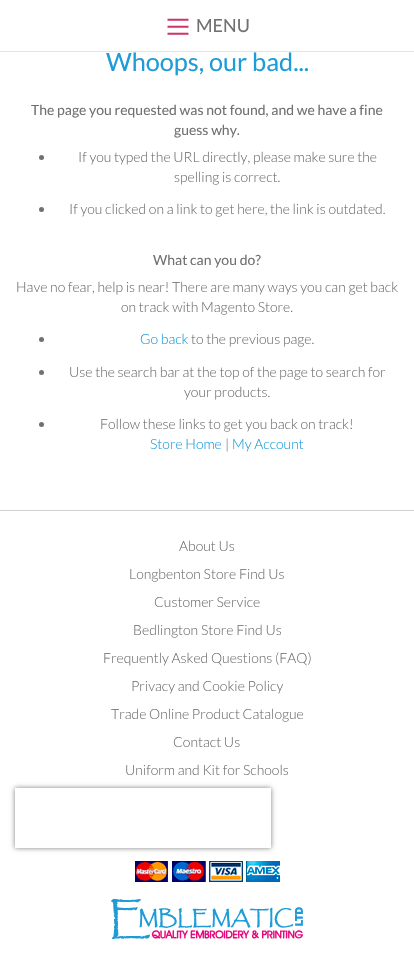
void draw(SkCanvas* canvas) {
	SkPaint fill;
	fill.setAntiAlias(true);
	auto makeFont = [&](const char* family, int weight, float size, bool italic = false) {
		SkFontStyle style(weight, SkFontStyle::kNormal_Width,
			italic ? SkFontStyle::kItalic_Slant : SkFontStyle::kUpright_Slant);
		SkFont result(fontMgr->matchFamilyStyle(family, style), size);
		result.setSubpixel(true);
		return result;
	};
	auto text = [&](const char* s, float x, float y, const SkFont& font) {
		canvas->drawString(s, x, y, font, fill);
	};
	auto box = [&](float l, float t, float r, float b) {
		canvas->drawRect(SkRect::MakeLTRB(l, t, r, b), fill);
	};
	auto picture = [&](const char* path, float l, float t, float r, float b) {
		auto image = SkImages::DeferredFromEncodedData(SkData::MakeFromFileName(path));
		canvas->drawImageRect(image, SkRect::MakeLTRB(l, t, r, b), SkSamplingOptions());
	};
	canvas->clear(0xFFFFFFFF);
	fill.setColor(0xFFE3E3E3);
	box(0, 51, 414, 52);
	picture("image0.png", 167, 18, 189, 35);
	fill.setColor(0xFF707070);
	canvas->drawCircle(41.5f, 157.5f, 2.5f, fill);
	canvas->drawCircle(41.5f, 209.5f, 2.5f, fill);
	canvas->drawCircle(41.5f, 339.5f, 2.5f, fill);
	canvas->drawCircle(41.5f, 372.5f, 2.5f, fill);
	canvas->drawCircle(41.5f, 424.5f, 2.5f, fill);
	fill.setColor(0xFFD1D1D1);
	box(0, 510, 414, 511);
	canvas->save();
	canvas->clipPath(SkPathBuilder(SkPathFillType::kEvenOdd).moveTo(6, 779).lineTo(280, 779).lineTo(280, 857).lineTo(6, 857).close().moveTo(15, 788).lineTo(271, 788).lineTo(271, 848).lineTo(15, 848).close().detach(), true);
	fill.setColor(0xFF808080);
	fill.setMaskFilter(SkMaskFilter::MakeBlur(kNormal_SkBlurStyle, 2.5f));
	canvas->drawRect(SkRect::MakeLTRB(15, 788, 271, 848), fill);
	fill.setMaskFilter(nullptr);
	canvas->restore();
	picture("image1.png", 135, 861, 280, 882);
	picture("image2.png", 111, 899, 303, 939);
	auto font1 = makeFont("Lato", 400, 18);
	fill.setColor(0xFF707070);
	text("MENU", 196, 32, font1);
	auto font2 = makeFont("Lato", 400, 25.25f);
	fill.setColor(0xFF1D9CD7);
	text("Whoops, our bad...", 106, 71, font2);
	auto font3 = makeFont("Lato", 400, 14);
	fill.setColor(0xFF707070);
	text("The page you requested was not found, and we have a fine", 31, 115, font3);
	text("guess why.", 174, 135, font3);
	auto font4 = makeFont("Lato", 300, 14);
	text("If you typed the URL directly, please make sure the", 78, 162, font4);
	text("spelling is correct.", 174, 182, font4);
	text("If you clicked on a link to get here, the link is outdated.", 69, 214, font4);
	text("What can you do?", 153, 265, font3);
	text("Have no fear, help is near! There are many ways you can get back", 16, 292, font4);
	text("on track with Magento Store.", 121, 312, font4);
	fill.setColor(0xFF1D9CD7);
	text("Go back", 140, 344, font4);
	fill.setColor(0xFF707070);
	text("to the previous page.", 191, 344, font4);
	text("Use the search bar at the top of the page to search for", 69, 377, font4);
	text("your products.", 184, 397, font4);
	text("Follow these links to get you back on track!", 100, 429, font4);
	fill.setColor(0xFF1D9CD7);
	text("Store Home", 150, 449, font4);
	fill.setColor(0xFF707070);
	text("|", 225, 449, font4);
	fill.setColor(0xFF1D9CD7);
	text("My Account", 232, 449, font4);
	fill.setColor(0xFF707070);
	text("About Us", 179, 551, font4);
	text("Longbenton Store Find Us", 129, 579, font4);
	text("Customer Service", 154, 607, font4);
	text("Bedlington Store Find Us", 133, 635, font4);
	text("Frequently Asked Questions (FAQ)", 103, 663, font4);
	text("Privacy and Cookie Policy", 131, 691, font4);
	text("Trade Online Product Catalogue", 111, 719, font4);
	text("Contact Us", 173, 747, font4);
	text("Uniform and Kit for Schools", 125, 775, font4);
}
